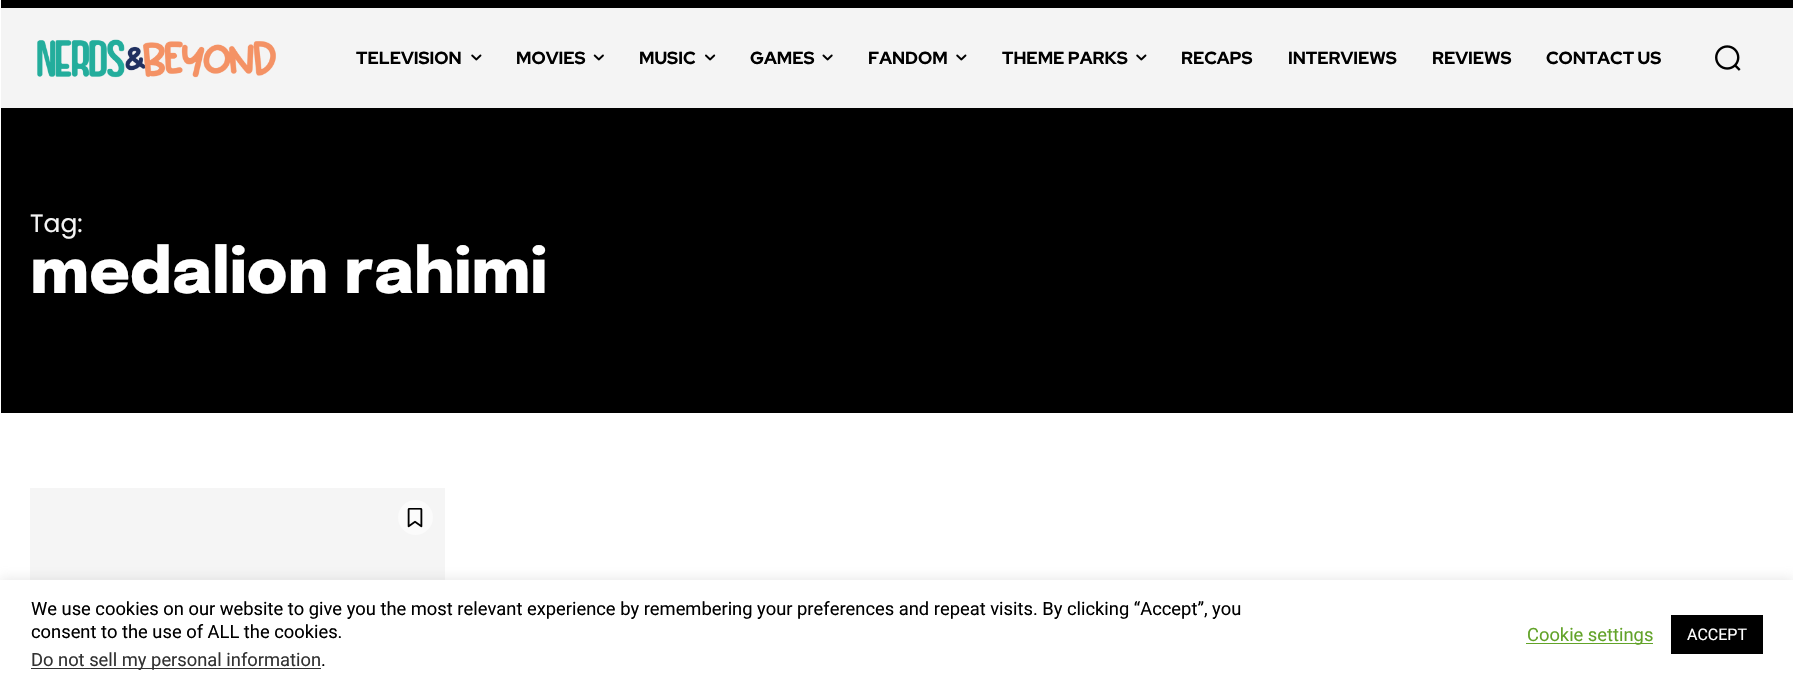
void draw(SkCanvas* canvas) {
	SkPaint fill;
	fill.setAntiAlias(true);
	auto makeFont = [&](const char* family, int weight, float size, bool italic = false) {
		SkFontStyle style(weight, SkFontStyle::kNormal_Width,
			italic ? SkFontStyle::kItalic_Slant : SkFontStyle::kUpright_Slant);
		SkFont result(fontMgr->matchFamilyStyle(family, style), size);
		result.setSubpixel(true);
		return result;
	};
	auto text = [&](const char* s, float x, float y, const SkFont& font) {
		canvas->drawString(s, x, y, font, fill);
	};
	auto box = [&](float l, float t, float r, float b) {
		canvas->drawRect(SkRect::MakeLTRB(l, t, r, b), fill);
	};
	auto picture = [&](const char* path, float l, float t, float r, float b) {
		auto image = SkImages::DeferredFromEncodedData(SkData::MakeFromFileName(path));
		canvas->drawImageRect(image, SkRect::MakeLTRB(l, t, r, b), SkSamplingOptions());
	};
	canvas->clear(0xFFFFFFFF);
	fill.setColor(0xFF000000);
	box(1, 0, 1793, 8);
	fill.setColor(0xFFF4F4F4);
	box(1, 8, 1793, 108);
	picture("image0.png", 37, 39, 276, 78);
	picture("image1.png", 471, 54, 482, 61);
	picture("image2.png", 593, 54, 604, 61);
	picture("image3.png", 705, 54, 716, 61);
	picture("image4.png", 822, 54, 833, 61);
	picture("image1.png", 956, 54, 967, 61);
	picture("image1.png", 1136, 54, 1147, 61);
	picture("image5.png", 1715, 45, 1741, 71);
	fill.setColor(0xFF000000);
	box(1, 108, 1793, 413);
	picture("image6.png", 30, 488, 445, 580);
	fill.setColor(0xFFFBFBFB);
	canvas->drawCircle(415.5f, 517.5f, 17.5f, fill);
	picture("image7.png", 407, 508, 423, 528);
	fill.setColor(0x4DACABAB);
	fill.setMaskFilter(SkMaskFilter::MakeBlur(kNormal_SkBlurStyle, 6));
	canvas->drawRect(SkRect::MakeLTRB(0, 579, 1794, 688), fill);
	fill.setMaskFilter(nullptr);
	fill.setColor(0xFFFFFFFF);
	box(0, 580, 1793, 688);
	fill.setColor(0xFF333333);
	box(31, 668, 321, 669);
	fill.setColor(0xFF62A329);
	box(1526, 643, 1653, 644);
	fill.setColor(0xFF000000);
	box(1671, 615, 1763, 654);
	auto font1 = makeFont("Red Hat Display", 800, 17.5f);
	text("TELEVISION", 356, 64, font1);
	text("MOVIES", 516, 64, font1);
	text("MUSIC", 639, 64, font1);
	text("GAMES", 750, 64, font1);
	text("FANDOM", 868, 64, font1);
	text("THEME PARKS", 1002, 64, font1);
	text("RECAPS", 1181, 64, font1);
	text("INTERVIEWS", 1288, 64, font1);
	text("REVIEWS", 1432, 64, font1);
	text("CONTACT US", 1546, 64, font1);
	auto font2 = makeFont("Poppins", 400, 25);
	fill.setColor(0xFFF4F4F4);
	text("Tag:", 30, 232, font2);
	auto font3 = makeFont("Epilogue", 800, 62.5f);
	fill.setColor(0xFFFFFFFF);
	text("medalion rahimi", 30, 293, font3);
	auto font4 = makeFont("Roboto", 400, 18.33f);
	fill.setColor(0xFF000000);
	text("We use cookies on our website to give you the most relevant experience by remembering your preferences and repeat visits. By clicking “Accept”, you", 31, 615, font4);
	text("consent to the use of ALL the cookies.", 31, 638, font4);
	fill.setColor(0xFF333333);
	text("Do not sell my personal information", 31, 666, font4);
	fill.setColor(0xFF000000);
	text(".", 321, 666, font4);
	fill.setColor(0xFF62A329);
	text("Cookie settings", 1527, 641, font4);
	auto font5 = makeFont("Roboto", 400, 16);
	fill.setColor(0xFFFFFFFF);
	text("ACCEPT", 1687, 640, font5);
}
